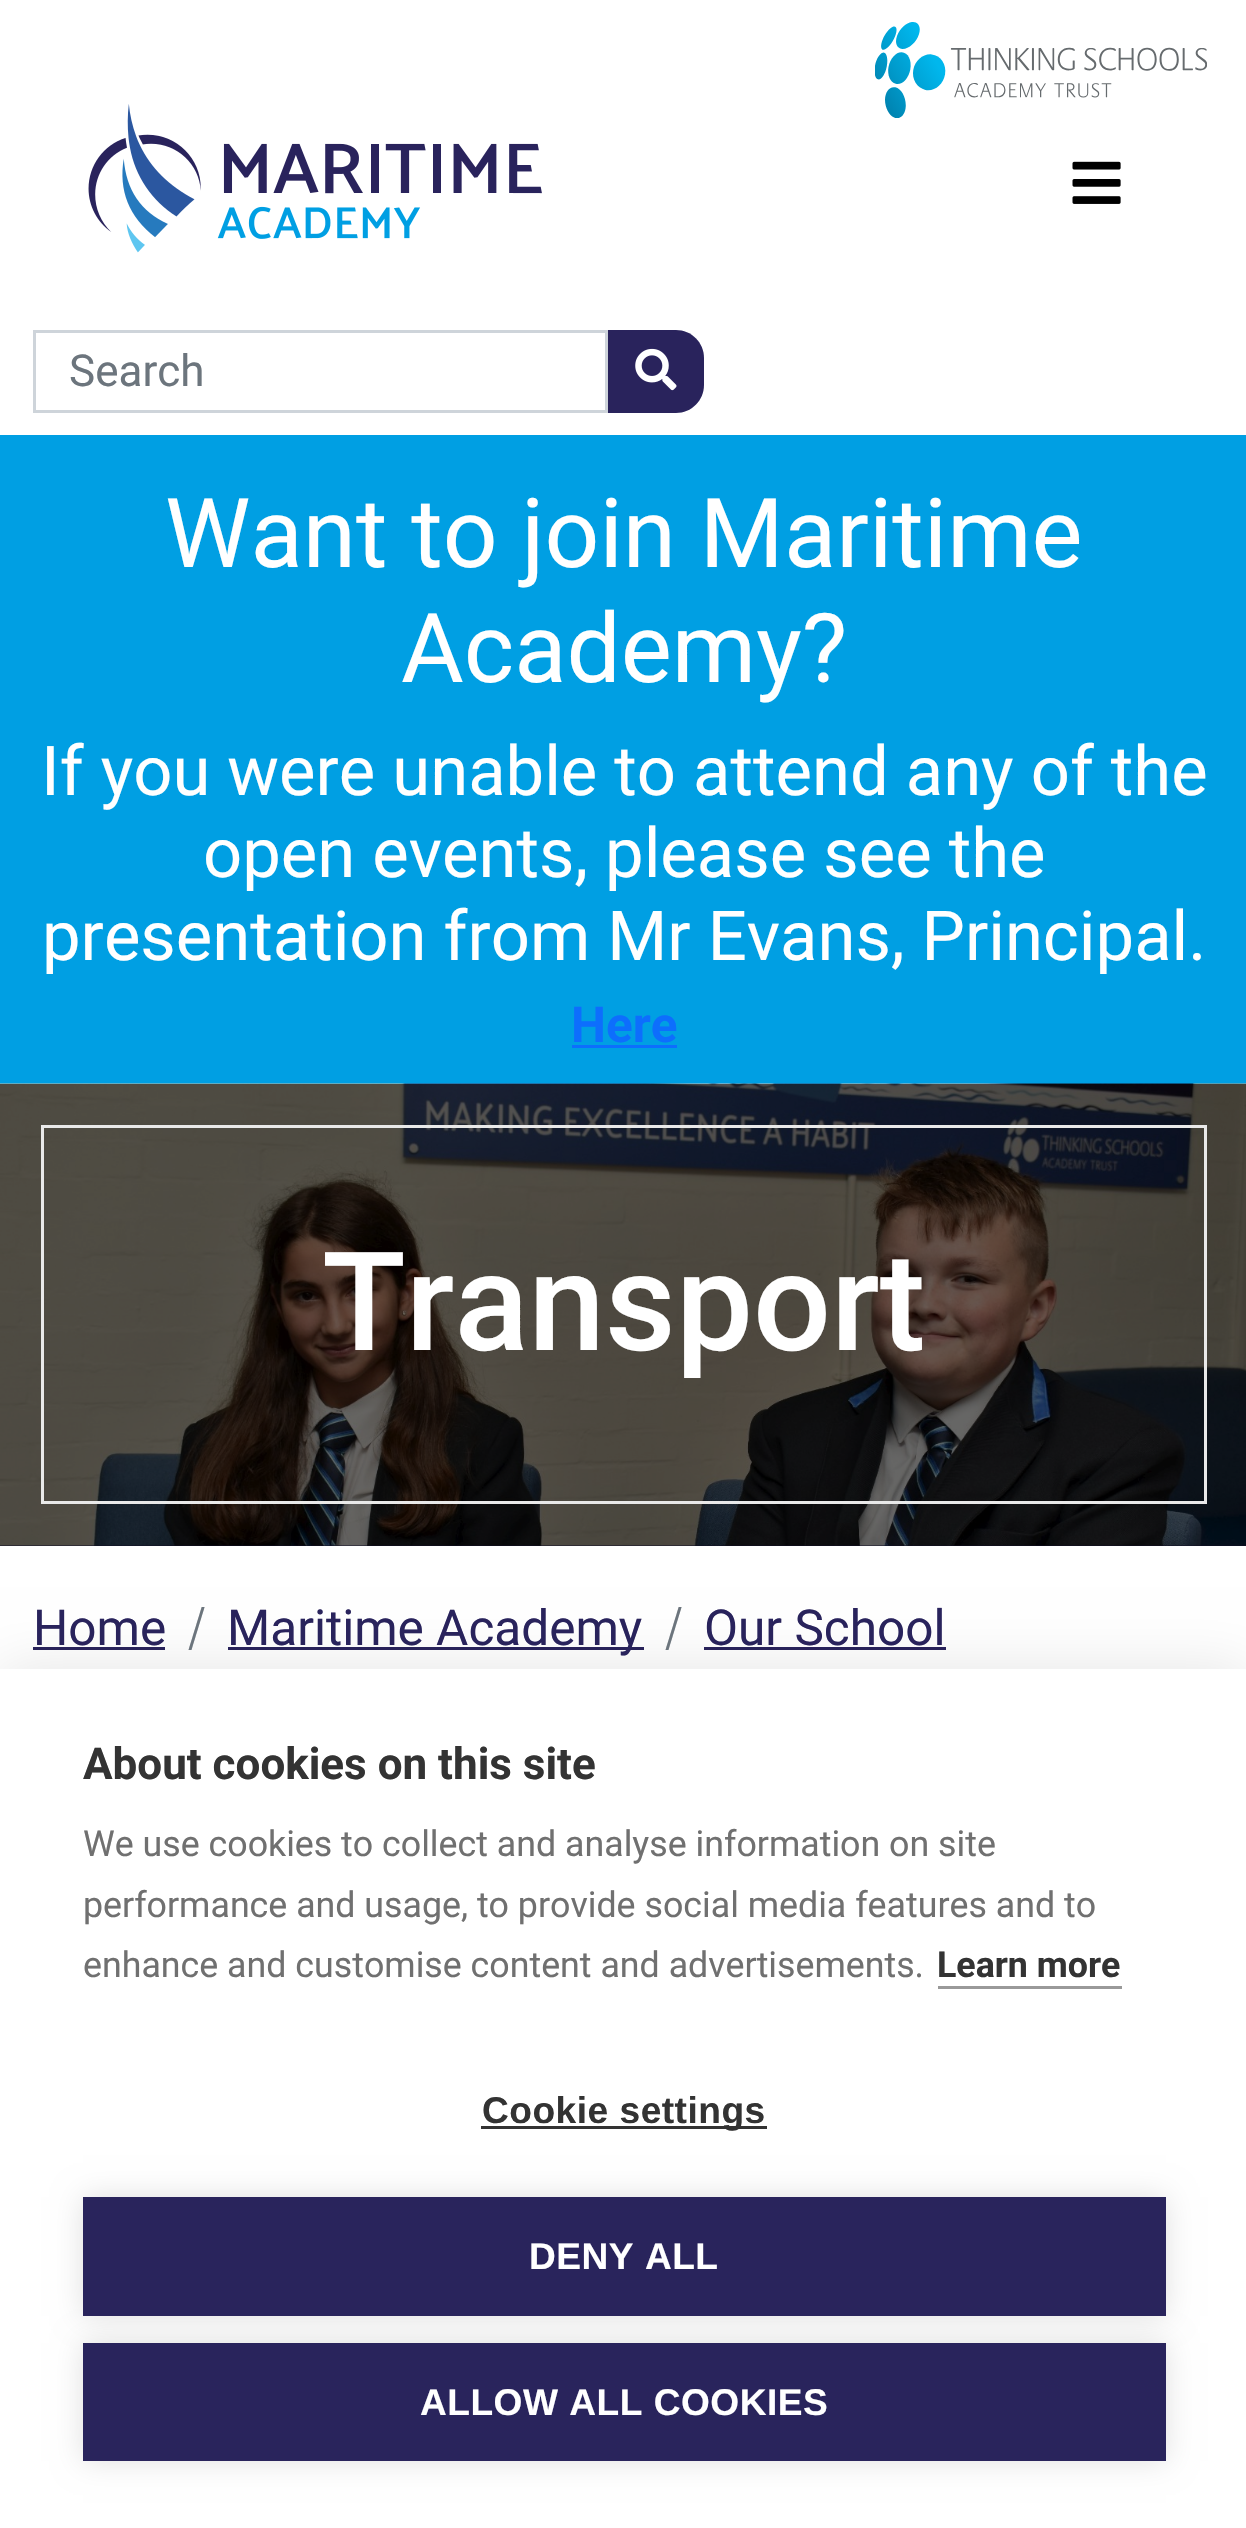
void draw(SkCanvas* canvas) {
	SkPaint fill;
	fill.setAntiAlias(true);
	auto makeFont = [&](const char* family, int weight, float size, bool italic = false) {
		SkFontStyle style(weight, SkFontStyle::kNormal_Width,
			italic ? SkFontStyle::kItalic_Slant : SkFontStyle::kUpright_Slant);
		SkFont result(fontMgr->matchFamilyStyle(family, style), size);
		result.setSubpixel(true);
		return result;
	};
	auto text = [&](const char* s, float x, float y, const SkFont& font) {
		canvas->drawString(s, x, y, font, fill);
	};
	auto spacedText = [&](const char* s, float x, float y, const SkFont& font, const SkPaint& ink, float letter, float word) {
		std::vector<SkGlyphID> glyphs(font.countText(s, strlen(s), SkTextEncoding::kUTF8));
		std::vector<float> xs(glyphs.size());
		font.textToGlyphs(s, strlen(s), SkTextEncoding::kUTF8, glyphs);
		font.getXPos(glyphs, xs, x);
		float extra = 0;
		for (size_t i = 0; i < glyphs.size(); i++) {
			xs[i] += extra;
			extra += letter + word * (glyphs[i] == font.unicharToGlyph(' '));
		}
		canvas->drawTextBlob(SkTextBlob::MakeFromPosHGlyphs(glyphs, xs, y, font), 0, 0, ink);
	};
	auto box = [&](float l, float t, float r, float b) {
		canvas->drawRect(SkRect::MakeLTRB(l, t, r, b), fill);
	};
	auto picture = [&](const char* path, float l, float t, float r, float b) {
		auto image = SkImages::DeferredFromEncodedData(SkData::MakeFromFileName(path));
		canvas->drawImageRect(image, SkRect::MakeLTRB(l, t, r, b), SkSamplingOptions());
	};
	canvas->clear(0xFFFFFFFF);
	picture("image0.png", 875, 22, 1207, 118);
	picture("image1.png", 88, 104, 542, 253);
	picture("image2.png", 1072, 161, 1121, 204);
	fill.setStyle(SkPaint::kStroke_Style);
	fill.setStrokeWidth(3);
	fill.setColor(0xFFCED4DA);
	canvas->drawRect(SkRect::MakeLTRB(34.5f, 331.5f, 606.5f, 411.5f), fill);
	fill.setStyle(SkPaint::kFill_Style);
	fill.setColor(0xFF29235C);
	canvas->drawPath(SkPathBuilder().moveTo(608, 330).lineTo(676, 330).cubicTo(691.5f, 330, 704, 342.5f, 704, 358).lineTo(704, 385).cubicTo(704, 400.5f, 691.5f, 413, 676, 413).lineTo(608, 413).close().detach(), fill);
	picture("image3.png", 635, 348, 677, 391);
	fill.setColor(0xFF009FE3);
	box(0, 435, 1246, 1084);
	fill.setColor(0xFF0D6EFD);
	box(572, 1045, 677, 1048);
	fill.setColor(0xFF100E25);
	box(0, 1545, 1246, 1546);
	picture("image4.png", 0, 1083, 1246, 1546);
	fill.setStyle(SkPaint::kStroke_Style);
	fill.setColor(0xFFE9E9E9);
	canvas->drawRect(SkRect::MakeLTRB(42.5f, 1126.5f, 1205.5f, 1502.5f), fill);
	fill.setStyle(SkPaint::kFill_Style);
	fill.setColor(0xFF29235C);
	box(33, 1647, 165, 1650);
	box(228, 1647, 644, 1650);
	box(704, 1647, 946, 1650);
	fill.setColor(0x1A000000);
	fill.setMaskFilter(SkMaskFilter::MakeBlur(kNormal_SkBlurStyle, 27.5f));
	canvas->drawRect(SkRect::MakeLTRB(0, 1669, 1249, 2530), fill);
	fill.setMaskFilter(nullptr);
	fill.setColor(0xFFFFFFFF);
	box(0, 1669, 1246, 2528);
	fill.setColor(0xFF999999);
	box(938, 1986, 1122, 1989);
	fill.setColor(0xFF333333);
	box(481, 2126, 767, 2129);
	fill.setColor(0x1F000000);
	fill.setMaskFilter(SkMaskFilter::MakeBlur(kNormal_SkBlurStyle, 14));
	canvas->drawRect(SkRect::MakeLTRB(83, 2197, 1166, 2316), fill);
	fill.setMaskFilter(nullptr);
	fill.setColor(0xFF29245C);
	box(83, 2197, 1166, 2316);
	fill.setColor(0x1F000000);
	fill.setMaskFilter(SkMaskFilter::MakeBlur(kNormal_SkBlurStyle, 14));
	canvas->drawRect(SkRect::MakeLTRB(83, 2343, 1166, 2461), fill);
	fill.setMaskFilter(nullptr);
	fill.setColor(0xFF29245C);
	box(83, 2343, 1166, 2461);
	auto font1 = makeFont("Roboto", 400, 44);
	fill.setColor(0xFF6C757D);
	text("Search", 69, 386, font1);
	auto font2 = makeFont("Roboto", 400, 96.25f);
	fill.setColor(0xFFFFFFFF);
	text("Want to join Maritime", 165, 567, font2);
	text("Academy?", 401, 682, font2);
	auto font3 = makeFont("Roboto", 400, 68.75f);
	text("If you were unable to attend any of the", 41, 795, font3);
	text("open events, please see the", 203, 877, font3);
	text("presentation from Mr Evans, Principal.", 42, 960, font3);
	auto font4 = makeFont("Roboto", 700, 49.5f);
	fill.setColor(0xFF0D6EFD);
	text("Here", 571, 1042, font4);
	auto font5 = makeFont("Roboto", 500, 137.5f);
	fill.setColor(0xFFFFFFFF);
	text("Transport", 322, 1350, font5);
	auto font6 = makeFont("Roboto", 400, 49.5f);
	fill.setColor(0xFF29235C);
	text("Home", 33, 1645, font6);
	auto font7 = makeFont("Noto Sans JP", 400, 44);
	fill.setColor(0xFF6C757D);
	text("/", 188, 1642, font7);
	fill.setColor(0xFF29235C);
	text("Maritime Academy", 227, 1645, font6);
	fill.setColor(0xFF6C757D);
	text("/", 665, 1642, font7);
	fill.setColor(0xFF29235C);
	text("Our School", 704, 1645, font6);
	auto font8 = makeFont("Roboto", 700, 44);
	fill.setColor(0xFF333333);
	text("About cookies on this site", 83, 1779, font8);
	auto font9 = makeFont("Roboto", 400, 35.75f);
	fill.setColor(0xFF707070);
	text("We use cookies to collect and analyse information on site", 83, 1856, font9);
	text("performance and usage, to provide social media features and to", 83, 1917, font9);
	text("enhance and customise content and advertisements.", 83, 1977, font9);
	auto font10 = makeFont("Roboto", 700, 35.75f);
	fill.setColor(0xFF333333);
	text("Learn more", 937, 1977, font10);
	auto font11 = makeFont("Liberation Sans", 700, 37.1f);
	spacedText("Cookie settings", 482, 2123, font11, fill, 0.5f, 0);
	fill.setColor(0xFFFFFFFF);
	spacedText("DENY ALL", 529, 2269, font11, fill, 0.5f, 0);
	spacedText("ALLOW ALL COOKIES", 420, 2415, font11, fill, 0.5f, 0);
}
